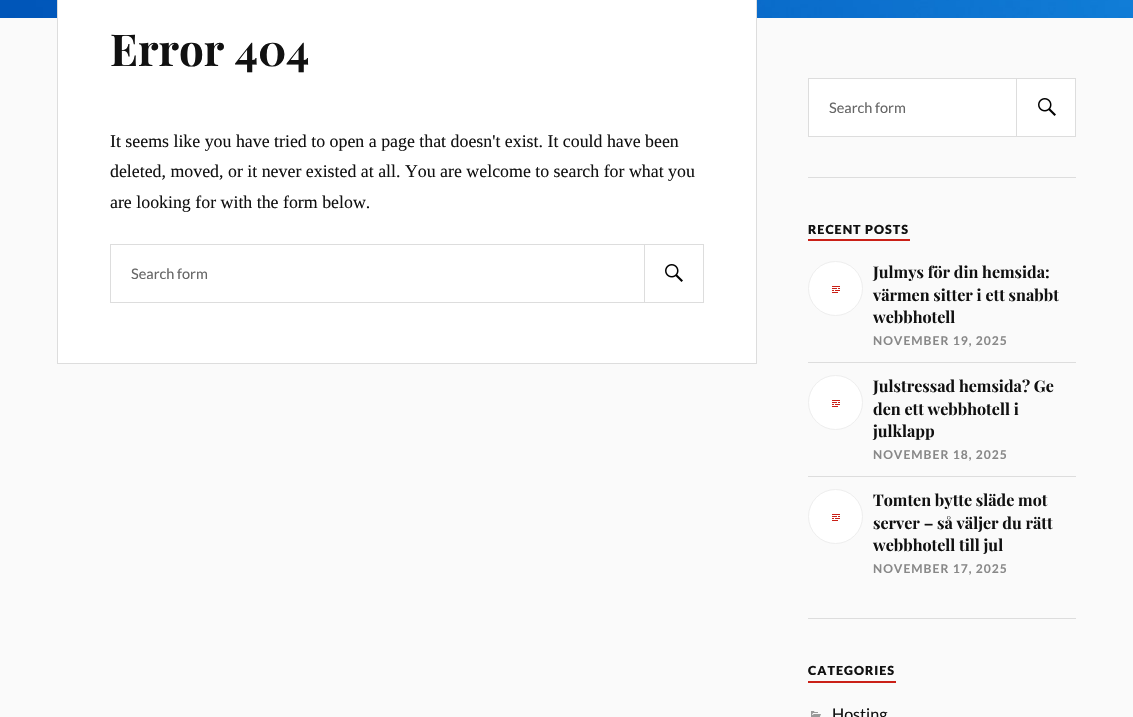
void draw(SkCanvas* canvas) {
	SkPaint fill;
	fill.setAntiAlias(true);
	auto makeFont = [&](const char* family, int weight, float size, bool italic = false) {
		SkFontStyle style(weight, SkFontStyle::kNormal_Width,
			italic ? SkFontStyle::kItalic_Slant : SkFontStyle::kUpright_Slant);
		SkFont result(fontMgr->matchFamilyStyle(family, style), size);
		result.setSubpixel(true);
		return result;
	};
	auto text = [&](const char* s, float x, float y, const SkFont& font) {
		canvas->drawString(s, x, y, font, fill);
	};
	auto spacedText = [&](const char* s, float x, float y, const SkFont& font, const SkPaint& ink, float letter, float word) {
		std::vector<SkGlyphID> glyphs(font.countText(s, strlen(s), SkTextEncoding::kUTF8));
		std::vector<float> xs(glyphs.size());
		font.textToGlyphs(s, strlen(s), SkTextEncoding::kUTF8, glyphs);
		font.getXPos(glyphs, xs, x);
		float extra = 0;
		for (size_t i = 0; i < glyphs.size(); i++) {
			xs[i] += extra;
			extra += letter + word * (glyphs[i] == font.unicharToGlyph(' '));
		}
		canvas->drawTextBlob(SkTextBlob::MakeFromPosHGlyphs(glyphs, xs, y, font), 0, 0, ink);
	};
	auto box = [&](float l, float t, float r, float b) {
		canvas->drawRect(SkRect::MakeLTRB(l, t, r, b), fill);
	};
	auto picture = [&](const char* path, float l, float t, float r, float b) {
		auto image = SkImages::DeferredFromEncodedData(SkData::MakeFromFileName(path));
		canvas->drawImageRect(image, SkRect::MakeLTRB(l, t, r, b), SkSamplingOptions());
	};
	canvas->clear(0xFFFAFAFA);
	picture("image0.png", 0, 0, 1133, 18);
	fill.setColor(0xFFFFFFFF);
	canvas->drawRect(SkRect::MakeLTRB(57.5f, -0.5f, 756.5f, 363.5f), fill);
	fill.setStyle(SkPaint::kStroke_Style);
	fill.setStrokeWidth(1);
	fill.setColor(0xFFDDDDDD);
	canvas->drawRect(SkRect::MakeLTRB(57.5f, -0.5f, 756.5f, 363.5f), fill);
	canvas->drawRect(SkRect::MakeLTRB(110.5f, 244.5f, 703.5f, 302.5f), fill);
	fill.setStyle(SkPaint::kFill_Style);
	box(644, 244, 645, 303);
	picture("image1.png", 665, 264, 683, 282);
	fill.setColor(0xFFFFFFFF);
	canvas->drawRect(SkRect::MakeLTRB(808.5f, 78.5f, 1075.5f, 136.5f), fill);
	fill.setStyle(SkPaint::kStroke_Style);
	fill.setColor(0xFFDDDDDD);
	canvas->drawRect(SkRect::MakeLTRB(808.5f, 78.5f, 1075.5f, 136.5f), fill);
	fill.setStyle(SkPaint::kFill_Style);
	box(1016, 78, 1017, 137);
	picture("image1.png", 1038, 98, 1056, 116);
	box(808, 177, 1076, 178);
	fill.setColor(0xFFCA2017);
	box(808, 239, 910, 241);
	fill.setColor(0xFFDDDDDD);
	box(808, 362, 1076, 363);
	fill.setColor(0xFFFFFFFF);
	canvas->drawCircle(835.5f, 288.5f, 27, fill);
	fill.setStyle(SkPaint::kStroke_Style);
	fill.setColor(0xFFEEEEEE);
	canvas->drawCircle(835.5f, 288.5f, 27, fill);
	picture("image2.png", 832, 286, 840, 293);
	fill.setStyle(SkPaint::kFill_Style);
	fill.setColor(0xFFDDDDDD);
	box(808, 476, 1076, 477);
	fill.setColor(0xFFFFFFFF);
	canvas->drawCircle(835.5f, 402.5f, 27, fill);
	fill.setStyle(SkPaint::kStroke_Style);
	fill.setColor(0xFFEEEEEE);
	canvas->drawCircle(835.5f, 402.5f, 27, fill);
	picture("image2.png", 832, 400, 840, 407);
	fill.setStyle(SkPaint::kFill_Style);
	fill.setColor(0xFFFFFFFF);
	canvas->drawCircle(835.5f, 516.5f, 27, fill);
	fill.setStyle(SkPaint::kStroke_Style);
	fill.setColor(0xFFEEEEEE);
	canvas->drawCircle(835.5f, 516.5f, 27, fill);
	picture("image2.png", 832, 514, 840, 521);
	fill.setStyle(SkPaint::kFill_Style);
	fill.setColor(0xFFDDDDDD);
	box(808, 618, 1076, 619);
	fill.setColor(0xFFCA2017);
	box(808, 681, 896, 683);
	picture("image3.png", 811, 711, 821, 717);
	auto font1 = makeFont("Playfair Display", 700, 44);
	fill.setColor(0xFF111111);
	text("Error 404", 110, 66, font1);
	auto font2 = makeFont("Liberation Serif", 400, 17.85f);
	text("It seems like you have tried to open a page that doesn't exist. It could have been", 110, 147, font2);
	text("deleted, moved, or it never existed at all. You are welcome to search for what you", 110, 177, font2);
	text("are looking for with the form below.", 110, 208, font2);
	auto font3 = makeFont("Lato", 400, 14.5f);
	fill.setColor(0xFF666666);
	text("Search form", 131, 279, font3);
	text("Search form", 829, 113, font3);
	auto font4 = makeFont("Lato", 900, 12.5f);
	fill.setColor(0xFF111111);
	spacedText("RECENT POSTS", 808, 234, font4, fill, 1, 0);
	auto font5 = makeFont("Playfair Display", 700, 16.1f);
	text("Julmys för din hemsida:", 873, 278, font5);
	text("värmen sitter i ett snabbt", 873, 301, font5);
	text("webbhotell", 873, 323, font5);
	auto font6 = makeFont("Lato", 700, 12.1f);
	fill.setColor(0xFF888888);
	spacedText("NOVEMBER 19, 2025", 873, 345, font6, fill, 1, 0);
	fill.setColor(0xFF111111);
	text("Julstressad hemsida? Ge", 873, 392, font5);
	text("den ett webbhotell i", 873, 415, font5);
	text("julklapp", 873, 437, font5);
	fill.setColor(0xFF888888);
	spacedText("NOVEMBER 18, 2025", 873, 459, font6, fill, 1, 0);
	fill.setColor(0xFF111111);
	text("Tomten bytte släde mot", 873, 506, font5);
	text("server – så väljer du rätt", 873, 529, font5);
	text("webbhotell till jul", 873, 551, font5);
	fill.setColor(0xFF888888);
	spacedText("NOVEMBER 17, 2025", 873, 573, font6, fill, 1, 0);
	fill.setColor(0xFF111111);
	spacedText("CATEGORIES", 808, 675, font4, fill, 1, 0);
	auto font7 = makeFont("Lato", 400, 16.1f);
	text("Hosting", 832, 720, font7);
}
